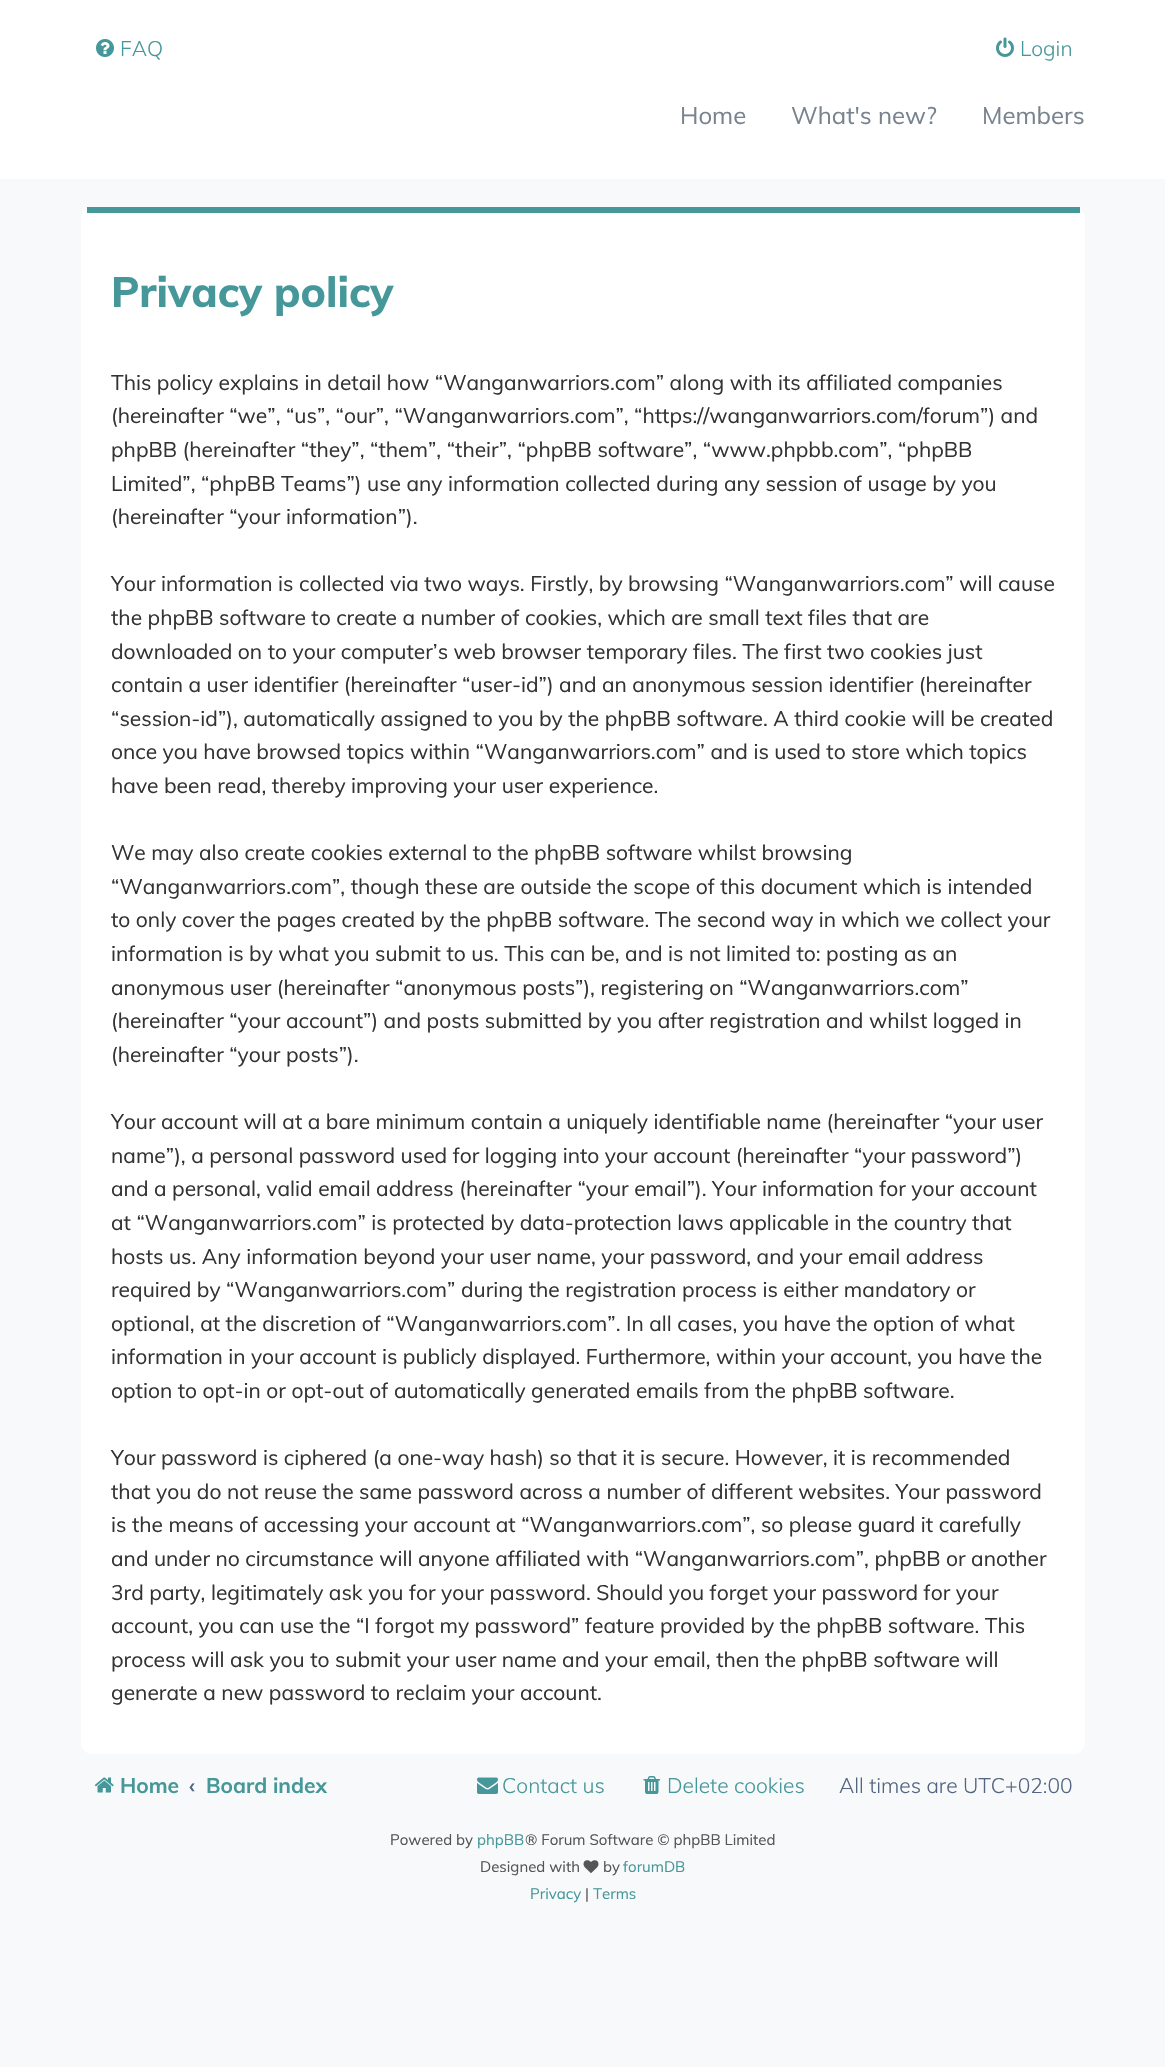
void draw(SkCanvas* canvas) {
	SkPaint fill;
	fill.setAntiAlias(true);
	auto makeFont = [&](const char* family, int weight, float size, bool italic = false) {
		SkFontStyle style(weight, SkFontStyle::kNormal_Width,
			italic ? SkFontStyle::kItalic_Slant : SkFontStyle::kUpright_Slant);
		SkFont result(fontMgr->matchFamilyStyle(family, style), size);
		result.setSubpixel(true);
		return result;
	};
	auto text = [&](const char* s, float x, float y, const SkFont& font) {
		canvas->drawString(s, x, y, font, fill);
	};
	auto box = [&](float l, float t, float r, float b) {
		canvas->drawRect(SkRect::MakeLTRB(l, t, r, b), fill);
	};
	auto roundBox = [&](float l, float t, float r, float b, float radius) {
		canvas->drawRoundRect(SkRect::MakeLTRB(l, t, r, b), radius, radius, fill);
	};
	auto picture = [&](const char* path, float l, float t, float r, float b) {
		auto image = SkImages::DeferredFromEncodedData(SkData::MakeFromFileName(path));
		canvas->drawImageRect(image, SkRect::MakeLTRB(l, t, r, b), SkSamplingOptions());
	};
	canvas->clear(0xFFF8F9FA);
	fill.setColor(0xFFFFFFFF);
	box(0, 0, 1165, 179);
	picture("image0.png", 96, 39, 114, 57);
	picture("image1.png", 996, 37, 1014, 57);
	roundBox(81, 207, 1085, 1754, 11);
	fill.setColor(0xFF45979A);
	box(87, 207, 1080, 213);
	picture("image2.png", 94, 1777, 114, 1793);
	picture("image3.png", 477, 1777, 498, 1794);
	picture("image4.png", 643, 1776, 660, 1794);
	picture("image5.png", 583, 1860, 599, 1873);
	auto font1 = makeFont("Muli", 300, 21);
	text("FAQ", 120, 56, font1);
	text("Login", 1020, 56, font1);
	auto font2 = makeFont("Muli", 400, 24);
	fill.setColor(0xFF77838F);
	text("Home", 680, 124, font2);
	text("What's new?", 791, 124, font2);
	text("Members", 982, 124, font2);
	auto font3 = makeFont("Muli", 800, 42);
	fill.setColor(0xFF45979A);
	text("Privacy policy", 111, 307, font3);
	auto font4 = makeFont("Muli", 400, 21);
	fill.setColor(0xFF333333);
	text("This policy explains in detail how “Wanganwarriors.com” along with its affiliated companies", 111, 390, font4);
	text("(hereinafter “we”, “us”, “our”, “Wanganwarriors.com”, “https://wanganwarriors.com/forum”) and", 111, 423, font4);
	text("phpBB (hereinafter “they”, “them”, “their”, “phpBB software”, “www.phpbb.com”, “phpBB", 111, 457, font4);
	text("Limited”, “phpBB Teams”) use any information collected during any session of usage by you", 111, 491, font4);
	text("(hereinafter “your information”).", 111, 524, font4);
	text("Your information is collected via two ways. Firstly, by browsing “Wanganwarriors.com” will cause", 111, 591, font4);
	text("the phpBB software to create a number of cookies, which are small text files that are", 111, 625, font4);
	text("downloaded on to your computer’s web browser temporary files. The first two cookies just", 111, 659, font4);
	text("contain a user identifier (hereinafter “user-id”) and an anonymous session identifier (hereinafter", 111, 692, font4);
	text("“session-id”), automatically assigned to you by the phpBB software. A third cookie will be created", 111, 726, font4);
	text("once you have browsed topics within “Wanganwarriors.com” and is used to store which topics", 111, 759, font4);
	text("have been read, thereby improving your user experience.", 111, 793, font4);
	text("We may also create cookies external to the phpBB software whilst browsing", 111, 860, font4);
	text("“Wanganwarriors.com”, though these are outside the scope of this document which is intended", 111, 894, font4);
	text("to only cover the pages created by the phpBB software. The second way in which we collect your", 111, 927, font4);
	text("information is by what you submit to us. This can be, and is not limited to: posting as an", 111, 961, font4);
	text("anonymous user (hereinafter “anonymous posts”), registering on “Wanganwarriors.com”", 111, 995, font4);
	text("(hereinafter “your account”) and posts submitted by you after registration and whilst logged in", 111, 1028, font4);
	text("(hereinafter “your posts”).", 111, 1062, font4);
	text("Your account will at a bare minimum contain a uniquely identifiable name (hereinafter “your user", 111, 1129, font4);
	text("name”), a personal password used for logging into your account (hereinafter “your password”)", 111, 1163, font4);
	text("and a personal, valid email address (hereinafter “your email”). Your information for your account", 111, 1196, font4);
	text("at “Wanganwarriors.com” is protected by data-protection laws applicable in the country that", 111, 1230, font4);
	text("hosts us. Any information beyond your user name, your password, and your email address", 111, 1264, font4);
	text("required by “Wanganwarriors.com” during the registration process is either mandatory or", 111, 1297, font4);
	text("optional, at the discretion of “Wanganwarriors.com”. In all cases, you have the option of what", 111, 1331, font4);
	text("information in your account is publicly displayed. Furthermore, within your account, you have the", 111, 1364, font4);
	text("option to opt-in or opt-out of automatically generated emails from the phpBB software.", 111, 1398, font4);
	text("Your password is ciphered (a one-way hash) so that it is secure. However, it is recommended", 111, 1465, font4);
	text("that you do not reuse the same password across a number of different websites. Your password", 111, 1499, font4);
	text("is the means of accessing your account at “Wanganwarriors.com”, so please guard it carefully", 111, 1532, font4);
	text("and under no circumstance will anyone affiliated with “Wanganwarriors.com”, phpBB or another", 111, 1566, font4);
	text("3rd party, legitimately ask you for your password. Should you forget your password for your", 111, 1600, font4);
	text("account, you can use the “I forgot my password” feature provided by the phpBB software. This", 111, 1633, font4);
	text("process will ask you to submit your user name and your email, then the phpBB software will", 111, 1667, font4);
	text("generate a new password to reclaim your account.", 111, 1700, font4);
	auto font5 = makeFont("Muli", 700, 21);
	fill.setColor(0xFF45979A);
	text("Home", 120, 1793, font5);
	fill.setColor(0xFF536482);
	text("‹", 189, 1793, font5);
	fill.setColor(0xFF45979A);
	text("Board index", 206, 1793, font5);
	text("Contact us", 502, 1793, font1);
	text("Delete cookies", 667, 1793, font1);
	fill.setColor(0xFF536482);
	text("All times are UTC+02:00", 839, 1793, font1);
	auto font6 = makeFont("Muli", 400, 15);
	fill.setColor(0xFF555555);
	text("Powered by", 390, 1845, font6);
	fill.setColor(0xFF45979A);
	text("phpBB", 477, 1845, font6);
	fill.setColor(0xFF555555);
	text("® Forum Software © phpBB Limited", 525, 1845, font6);
	text("Designed with", 480, 1872, font6);
	text("by", 603, 1872, font6);
	fill.setColor(0xFF45979A);
	text("forumDB", 623, 1872, font6);
	text("Privacy", 530, 1899, font6);
	fill.setColor(0xFF555555);
	text("|", 585, 1899, font6);
	fill.setColor(0xFF45979A);
	text("Terms", 593, 1899, font6);
}
